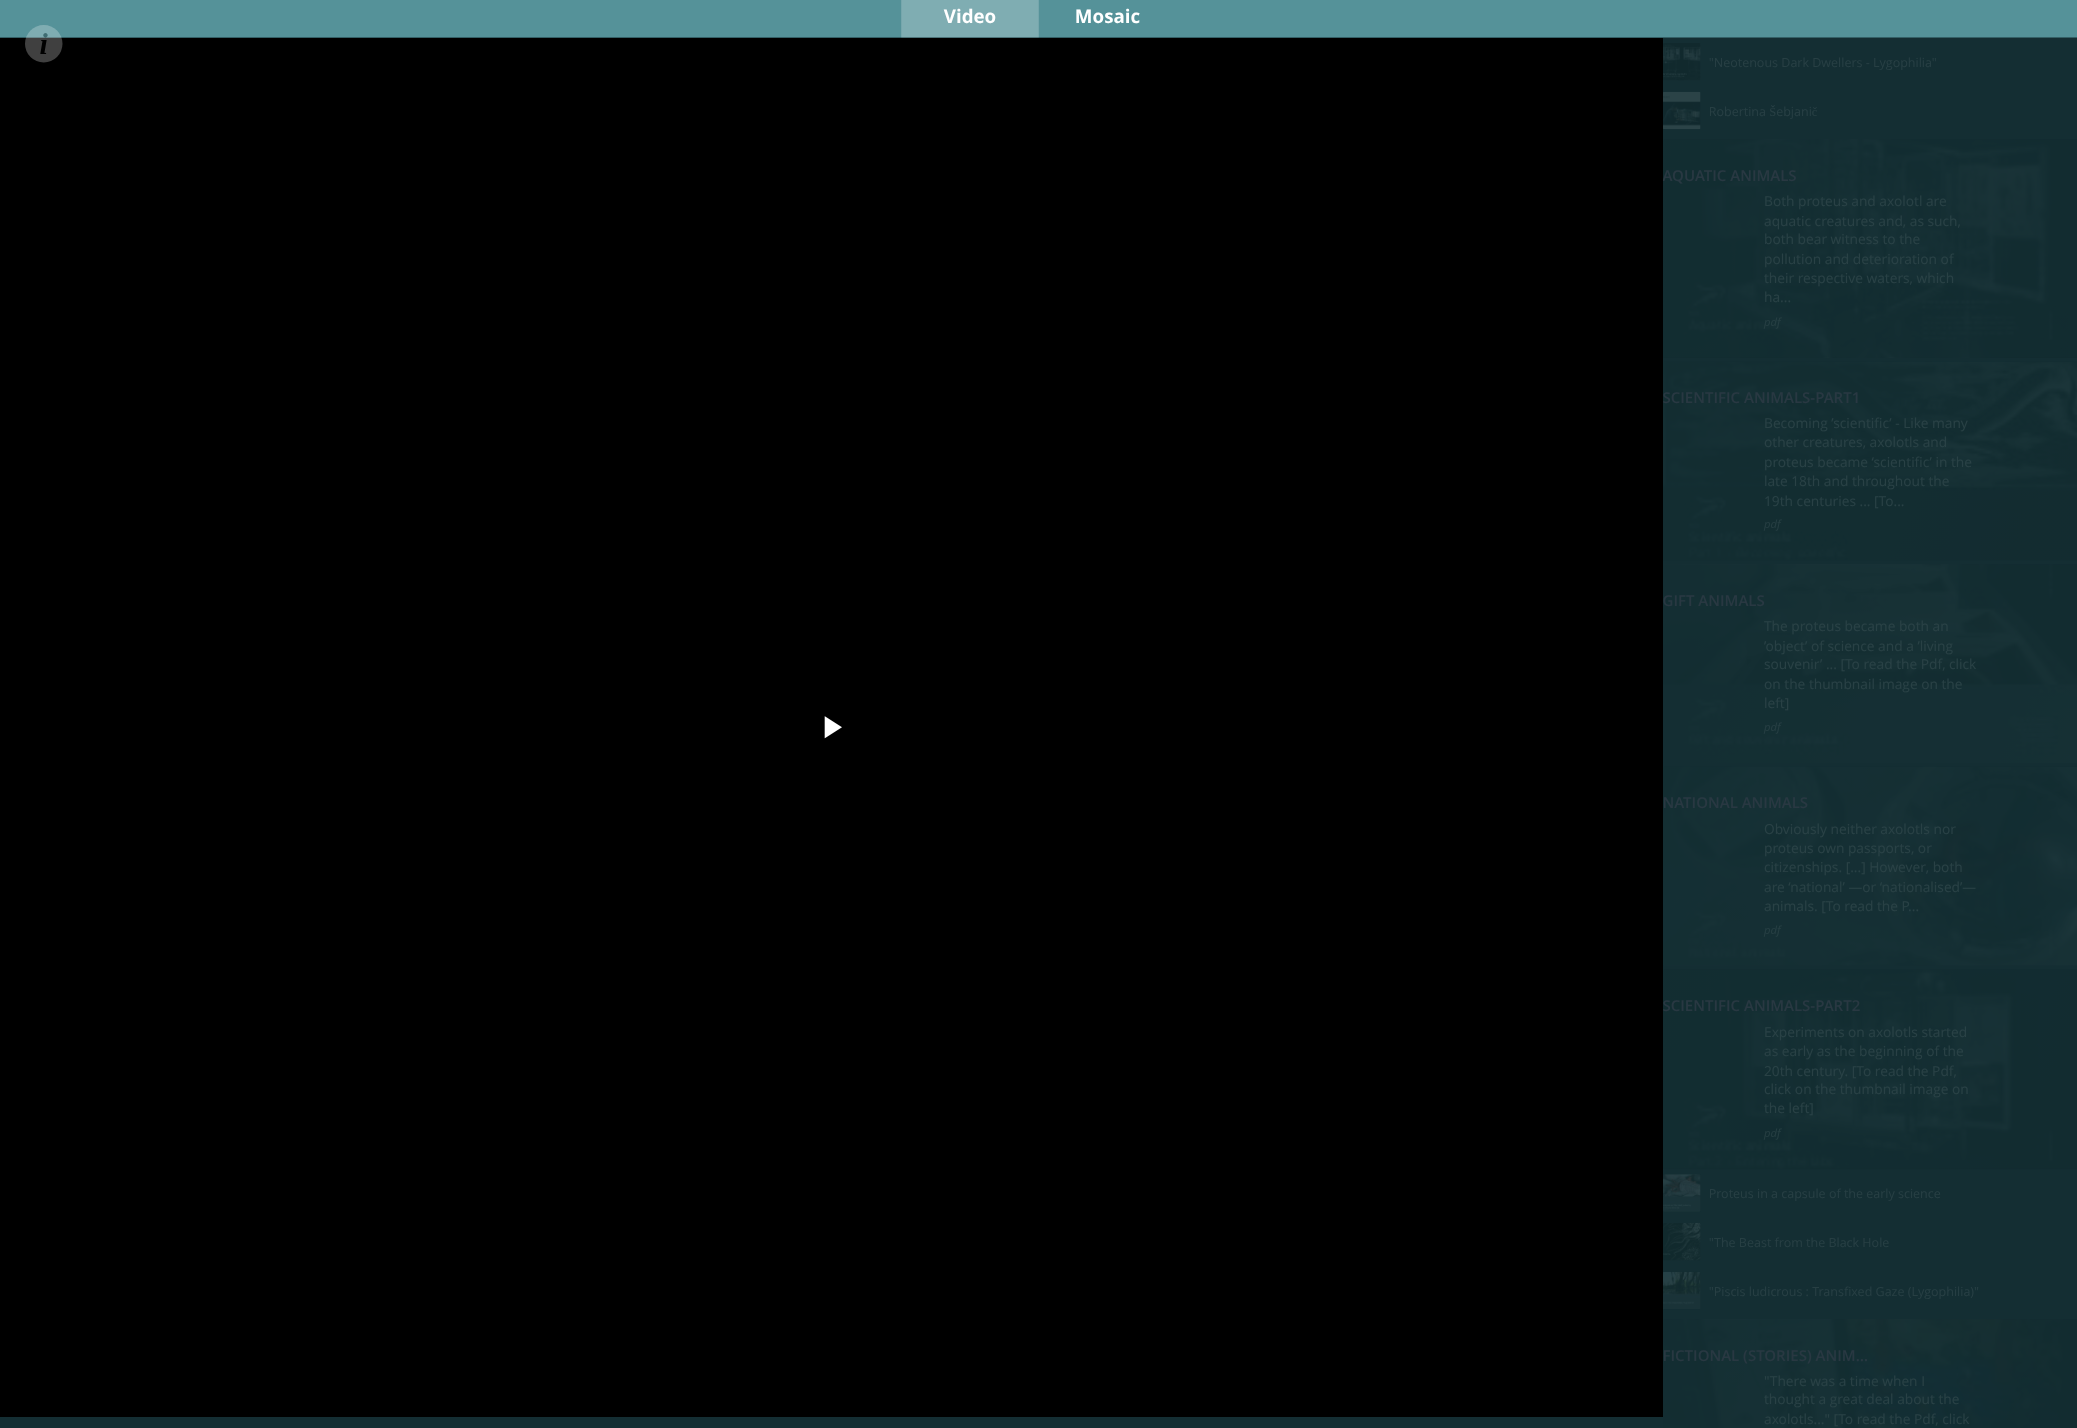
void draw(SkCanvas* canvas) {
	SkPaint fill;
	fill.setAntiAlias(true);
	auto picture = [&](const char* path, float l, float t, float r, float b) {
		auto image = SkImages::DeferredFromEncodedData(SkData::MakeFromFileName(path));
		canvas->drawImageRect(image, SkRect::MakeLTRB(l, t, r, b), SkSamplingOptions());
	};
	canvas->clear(0xFFFFFFFF);
	picture("image0.png", 0, 0, 2077, 1428);
}
